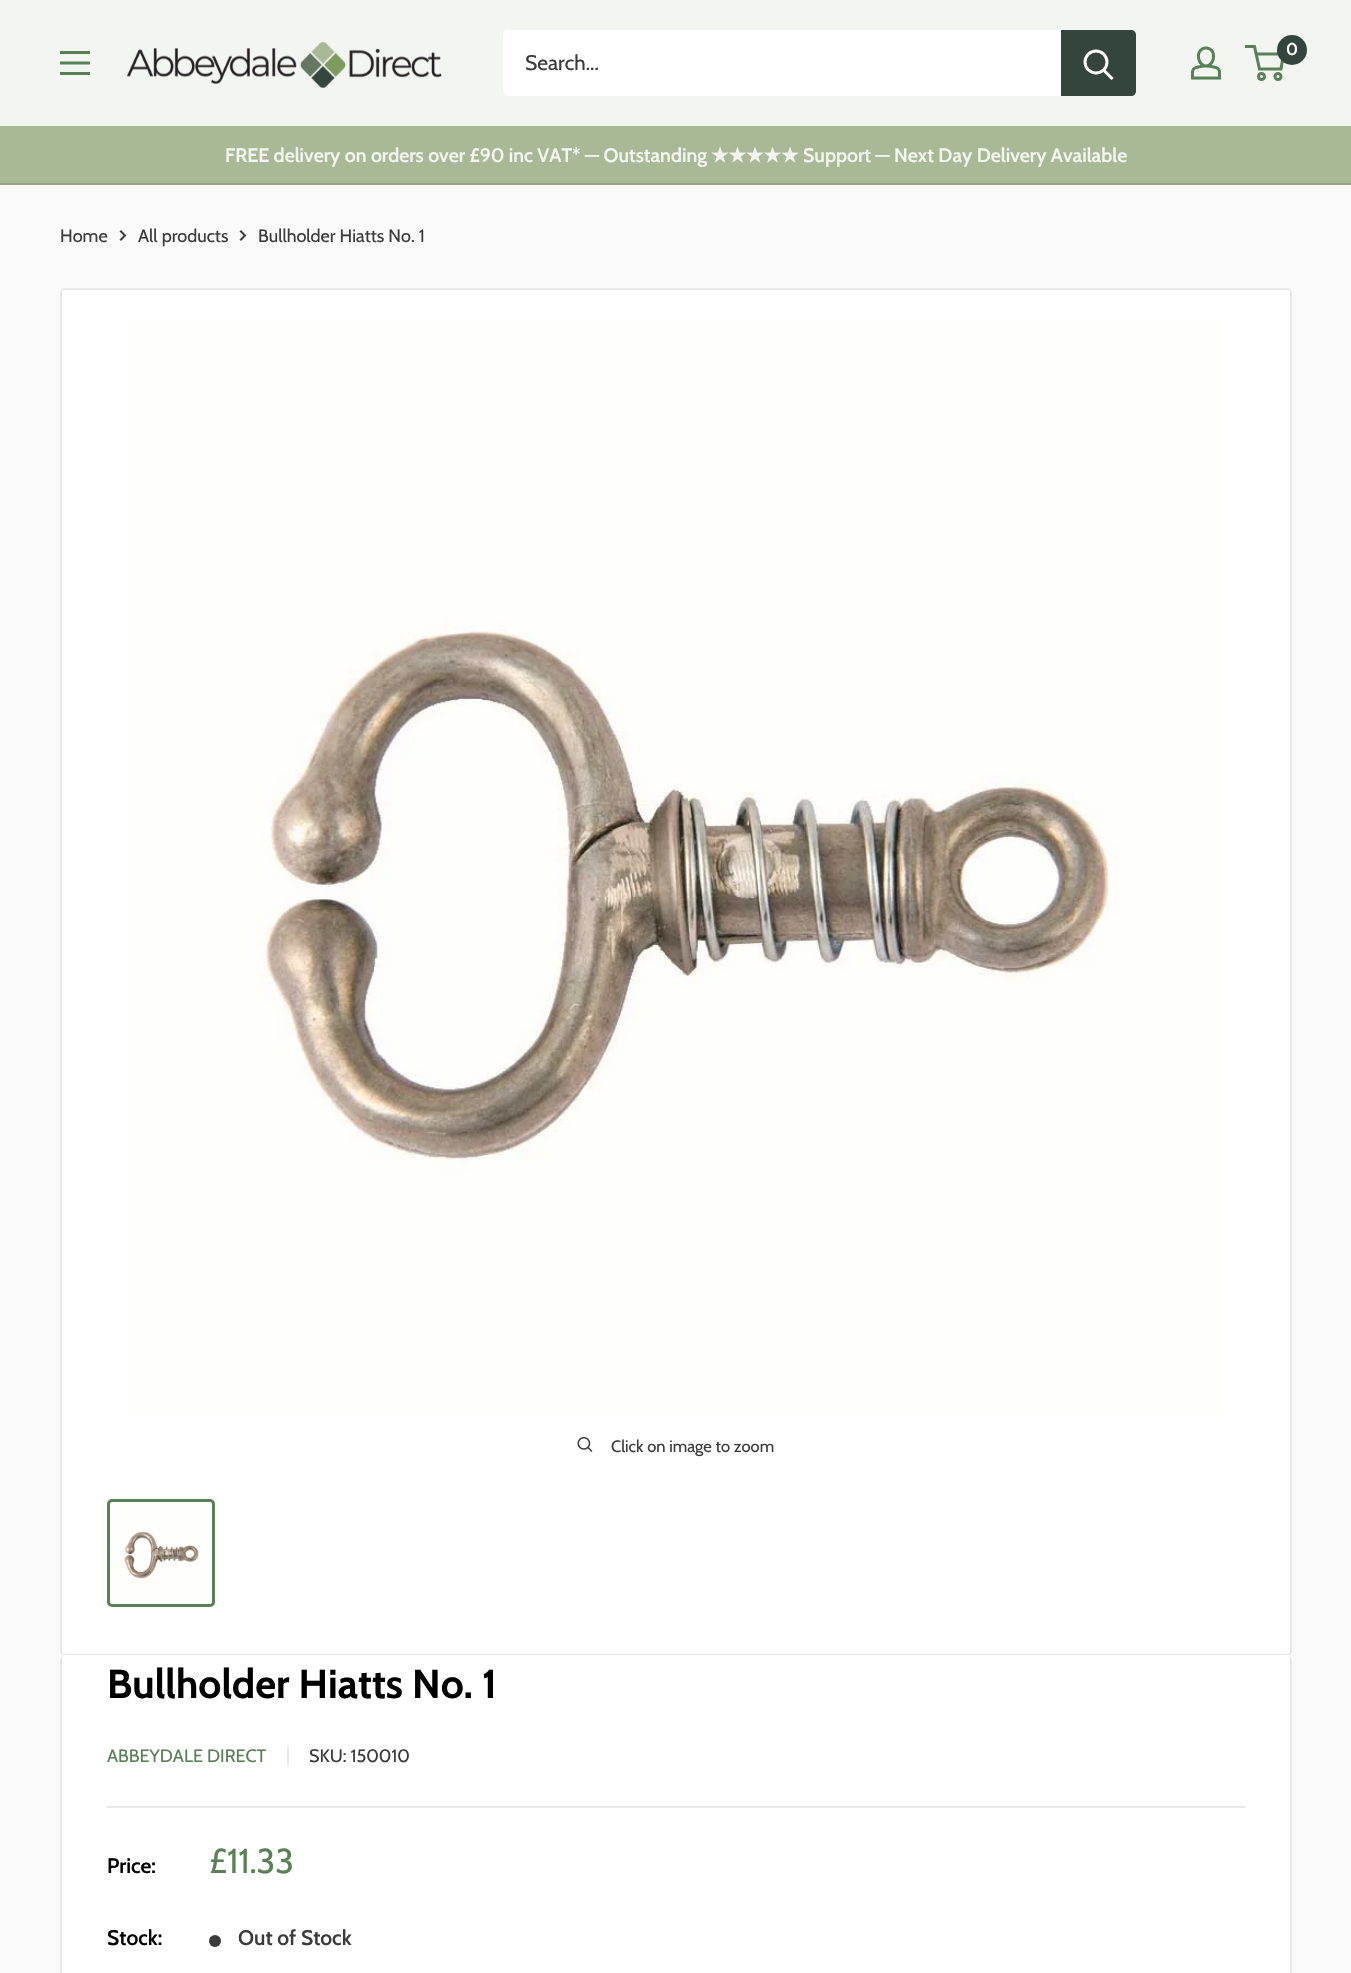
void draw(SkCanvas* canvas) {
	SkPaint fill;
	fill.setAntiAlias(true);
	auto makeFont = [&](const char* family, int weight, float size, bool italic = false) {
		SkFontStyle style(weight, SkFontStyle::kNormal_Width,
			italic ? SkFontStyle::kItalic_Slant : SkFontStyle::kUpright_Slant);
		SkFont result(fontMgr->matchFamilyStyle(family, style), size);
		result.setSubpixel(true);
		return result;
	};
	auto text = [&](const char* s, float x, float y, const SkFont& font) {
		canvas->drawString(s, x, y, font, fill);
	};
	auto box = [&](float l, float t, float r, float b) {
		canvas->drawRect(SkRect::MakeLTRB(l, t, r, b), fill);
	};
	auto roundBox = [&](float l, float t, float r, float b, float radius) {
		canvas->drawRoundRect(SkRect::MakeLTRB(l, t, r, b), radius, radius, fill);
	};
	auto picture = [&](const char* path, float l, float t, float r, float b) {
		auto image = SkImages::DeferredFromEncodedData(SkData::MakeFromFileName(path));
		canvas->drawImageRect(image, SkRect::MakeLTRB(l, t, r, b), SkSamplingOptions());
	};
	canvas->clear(0xFFFAFAFA);
	fill.setColor(0xFFF3F5F1);
	box(0, 0, 1351, 126);
	picture("image0.png", 126, 41, 442, 88);
	picture("image1.png", 1191, 46, 1221, 80);
	fill.setStyle(SkPaint::kStroke_Style);
	fill.setStrokeWidth(3);
	fill.setColor(0xFF598156);
	canvas->drawCircle(1261.5f, 76.5f, 3, fill);
	canvas->drawCircle(1278, 76.5f, 3, fill);
	canvas->drawPath(SkPathBuilder().moveTo(1256, 54).lineTo(1283.5f, 54).lineTo(1281, 69).lineTo(1259.5f, 69).lineTo(1254.5f, 46.5f).lineTo(1245, 46.5f).detach(), fill);
	fill.setStyle(SkPaint::kFill_Style);
	fill.setColor(0xFF33453C);
	canvas->drawCircle(1292, 50, 15, fill);
	picture("image2.png", 60, 51, 90, 75);
	fill.setColor(0xFFFFFFFF);
	roundBox(503, 30, 1136, 96, 5);
	fill.setColor(0xFF33453C);
	canvas->drawPath(SkPathBuilder().moveTo(1061, 30).lineTo(1131, 30).cubicTo(1134, 30, 1136, 32, 1136, 35).lineTo(1136, 91).cubicTo(1136, 94, 1134, 96, 1131, 96).lineTo(1061, 96).close().detach(), fill);
	fill.setStyle(SkPaint::kStroke_Style);
	fill.setStrokeCap(SkPaint::kSquare_Cap);
	fill.setColor(0xFFFFFFFF);
	canvas->drawPath(SkPathBuilder().moveTo(1111.5f, 78).lineTo(1104, 70.5f).detach(), fill);
	fill.setStrokeCap(SkPaint::kButt_Cap);
	canvas->drawCircle(1096, 62, 11, fill);
	fill.setStyle(SkPaint::kFill_Style);
	fill.setColor(0xFFA9B895);
	box(0, 126, 1351, 183);
	fill.setColor(0xFF97A585);
	box(0, 183, 1351, 185);
	fill.setStyle(SkPaint::kStroke_Style);
	fill.setStrokeWidth(2);
	fill.setStrokeCap(SkPaint::kSquare_Cap);
	fill.setColor(0xFF3B3B3B);
	canvas->drawPath(SkPathBuilder().moveTo(121, 231.5f).lineTo(125, 235.5f).lineTo(121, 239.5f).detach(), fill);
	canvas->drawPath(SkPathBuilder().moveTo(241, 231.5f).lineTo(245, 235.5f).lineTo(241, 239.5f).detach(), fill);
	fill.setStyle(SkPaint::kFill_Style);
	fill.setColor(0xFFFFFFFF);
	canvas->drawRoundRect(SkRect::MakeLTRB(61, 289, 1291, 1655), 4, 4, fill);
	fill.setStyle(SkPaint::kStroke_Style);
	fill.setStrokeCap(SkPaint::kButt_Cap);
	fill.setColor(0xFFE8E8E8);
	canvas->drawRoundRect(SkRect::MakeLTRB(61, 289, 1291, 1655), 4, 4, fill);
	picture("image3.png", 129, 320, 1222, 1413);
	picture("image4.png", 577, 1437, 593, 1452);
	fill.setStrokeWidth(3);
	fill.setColor(0xFF598156);
	canvas->drawRoundRect(SkRect::MakeLTRB(108.5f, 1500.5f, 213.5f, 1605.5f), 3.5f, 3.5f, fill);
	picture("image5.png", 113, 1505, 208, 1600);
	fill.setStyle(SkPaint::kFill_Style);
	fill.setColor(0xFFFFFFFF);
	canvas->drawPath(SkPathBuilder().moveTo(65, 1655).cubicTo(62, 1655, 60, 1658, 60, 1660).cubicTo(60, 1658, 62, 1656, 64, 1656).lineTo(1287, 1656).cubicTo(1289, 1656, 1292, 1658, 1292, 1660).lineTo(1291, 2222).lineTo(1292, 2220).lineTo(1292, 1660).cubicTo(1292, 1657, 1290, 1655, 1287, 1655).close().detach(), fill);
	roundBox(60, 1656, 1292, 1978, 5);
	fill.setColor(0xFFE8E8E8);
	canvas->drawPath(SkPathBuilder(SkPathFillType::kEvenOdd).moveTo(64, 1656).lineTo(1287, 1656).cubicTo(1289, 1656, 1292, 1658, 1292, 1660).lineTo(1292, 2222).cubicTo(1292, 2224, 1289, 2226, 1287, 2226).lineTo(64, 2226).cubicTo(62, 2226, 60, 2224, 60, 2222).lineTo(60, 1660).cubicTo(60, 1658, 62, 1656, 64, 1656).close().moveTo(64, 1656).lineTo(1287, 1656).cubicTo(1289, 1656, 1290, 1658, 1290, 1660).lineTo(1290, 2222).cubicTo(1290, 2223, 1289, 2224, 1287, 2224).lineTo(64, 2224).cubicTo(63, 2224, 62, 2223, 62, 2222).lineTo(62, 1660).cubicTo(62, 1658, 63, 1656, 64, 1656).close().detach(), fill);
	box(287, 1746, 289, 1766);
	box(107, 1806, 1245, 1808);
	fill.setColor(0xFF3B3B3B);
	canvas->drawCircle(215, 1941, 6, fill);
	auto font1 = makeFont("Cabin", 600, 17);
	fill.setColor(0xFFFFFFFF);
	text("0", 1286, 55, font1);
	auto font2 = makeFont("Cabin", 400, 21);
	fill.setColor(0xFF3B3B3B);
	text("Search...", 525, 70, font2);
	auto font3 = makeFont("Cabin", 600, 19.5f);
	fill.setColor(0xFFF3F5F1);
	text("FREE delivery on orders over £90 inc VAT* — Outstanding", 225, 162, font3);
	auto font4 = makeFont("DejaVu Sans", 700, 19.5f);
	text("★★★★★", 711, 162, font4);
	text("Support — Next Day Delivery Available", 803, 162, font3);
	auto font5 = makeFont("Cabin", 400, 18);
	fill.setColor(0xFF3B3B3B);
	text("Home", 60, 242, font5);
	text("All products", 138, 242, font5);
	text("Bullholder Hiatts No. 1", 258, 242, font5);
	auto font6 = makeFont("Cabin", 400, 16.5f);
	text("Click on image to zoom", 611, 1452, font6);
	auto font7 = makeFont("Cabin", 700, 40.5f);
	fill.setColor(0xFF000000);
	text("Bullholder Hiatts No. 1", 107, 1698, font7);
	fill.setColor(0xFF598156);
	text("ABBEYDALE DIRECT", 107, 1762, font5);
	fill.setColor(0xFF3B3B3B);
	text("SKU: 150010", 309, 1762, font5);
	auto font8 = makeFont("Cabin", 600, 21);
	fill.setColor(0xFF000000);
	text("Price:", 107, 1873, font8);
	auto font9 = makeFont("Cabin", 400, 34.5f);
	fill.setColor(0xFF598156);
	text("£11.33", 209, 1873, font9);
	fill.setColor(0xFF000000);
	text("Stock:", 107, 1945, font8);
	fill.setColor(0xFF3B3B3B);
	text("Out of Stock", 238, 1945, font8);
}
